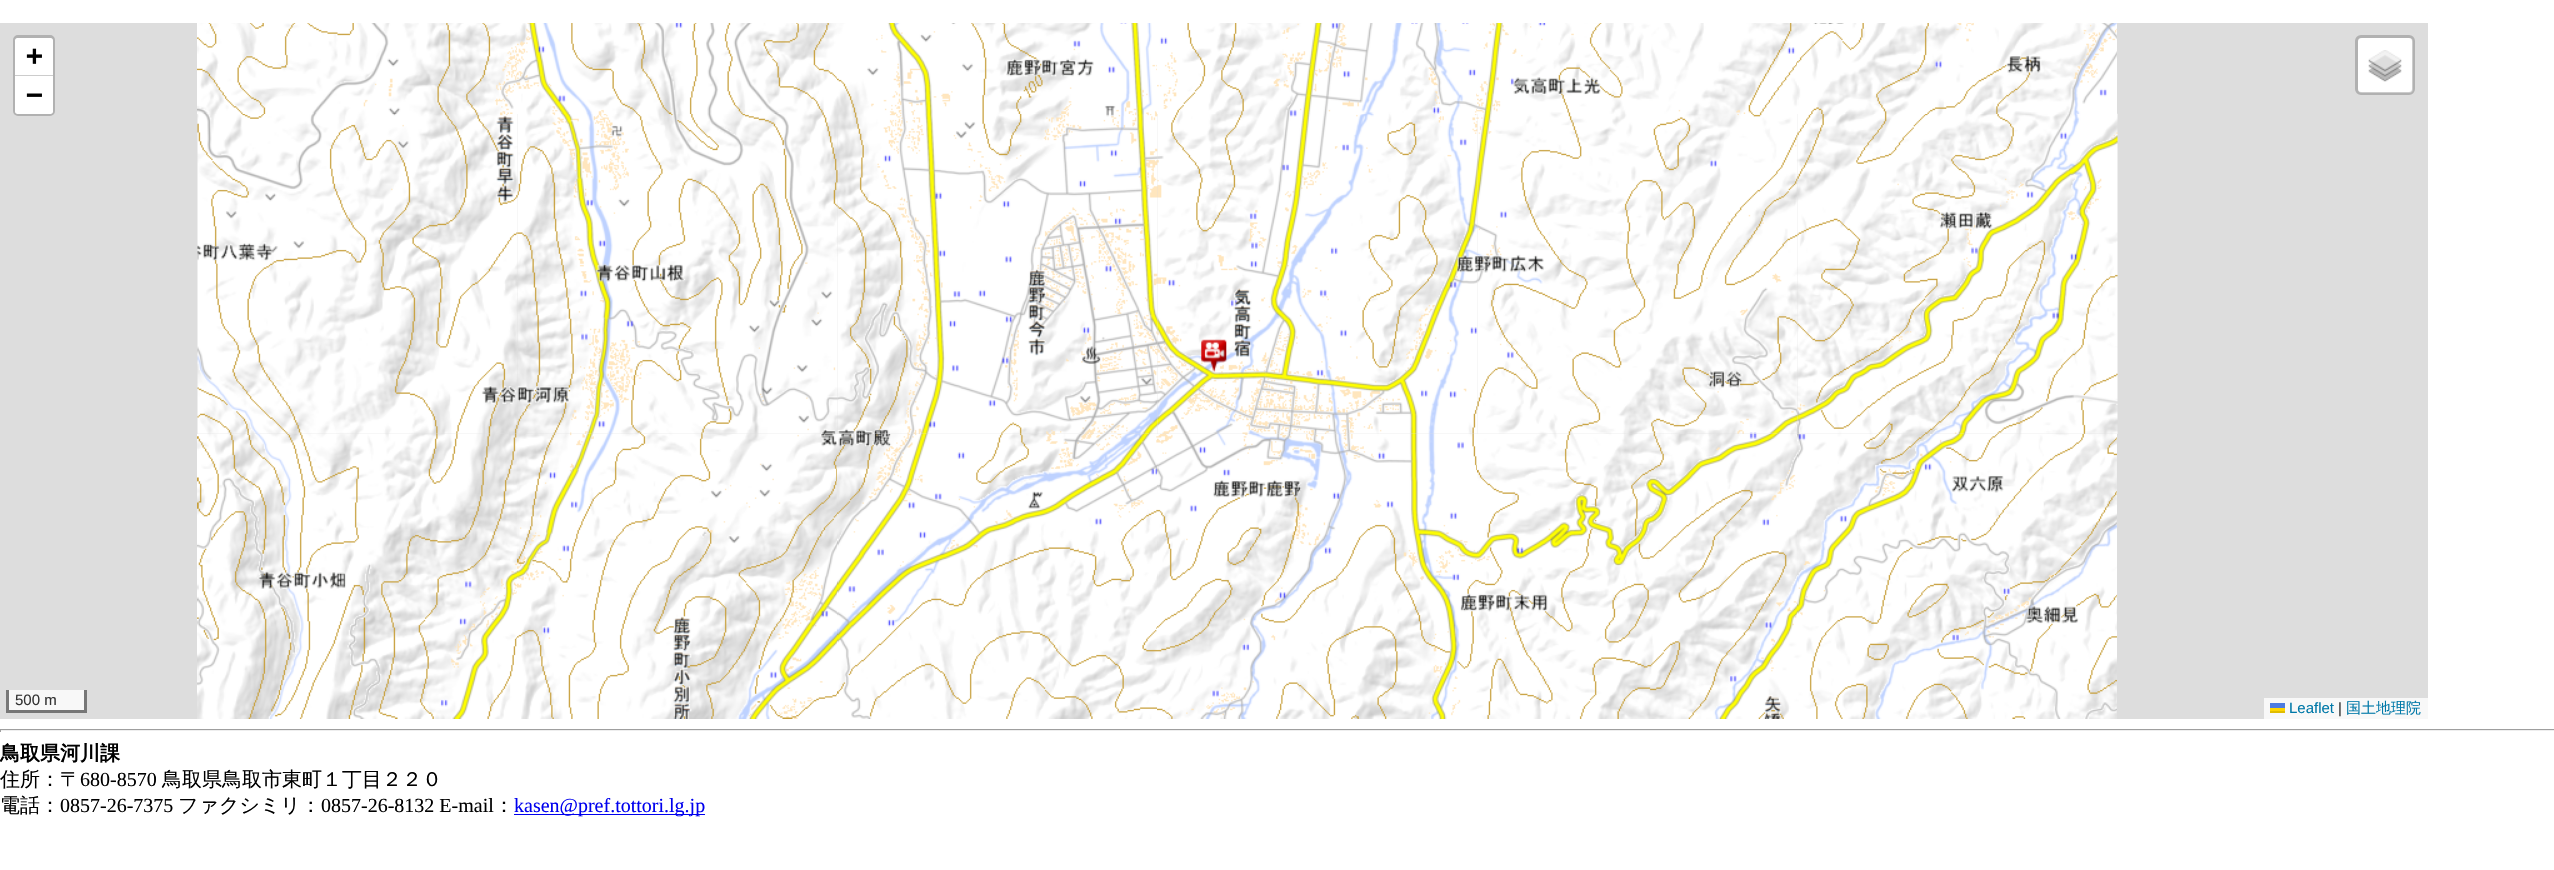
void draw(SkCanvas* canvas) {
	SkPaint fill;
	fill.setAntiAlias(true);
	auto makeFont = [&](const char* family, int weight, float size, bool italic = false) {
		SkFontStyle style(weight, SkFontStyle::kNormal_Width,
			italic ? SkFontStyle::kItalic_Slant : SkFontStyle::kUpright_Slant);
		SkFont result(fontMgr->matchFamilyStyle(family, style), size);
		result.setSubpixel(true);
		return result;
	};
	auto text = [&](const char* s, float x, float y, const SkFont& font) {
		canvas->drawString(s, x, y, font, fill);
	};
	auto box = [&](float l, float t, float r, float b) {
		canvas->drawRect(SkRect::MakeLTRB(l, t, r, b), fill);
	};
	auto roundBox = [&](float l, float t, float r, float b, float radius) {
		canvas->drawRoundRect(SkRect::MakeLTRB(l, t, r, b), radius, radius, fill);
	};
	auto picture = [&](const char* path, float l, float t, float r, float b) {
		auto image = SkImages::DeferredFromEncodedData(SkData::MakeFromFileName(path));
		canvas->drawImageRect(image, SkRect::MakeLTRB(l, t, r, b), SkSamplingOptions());
	};
	canvas->clear(0xFFFFFFFF);
	fill.setColor(0xFFDDDDDD);
	box(0, 23, 2428, 719);
	picture("image0.png", 197, 23, 517, 114);
	picture("image1.png", 517, 23, 837, 114);
	picture("image2.png", 837, 23, 1157, 114);
	picture("image3.png", 1157, 23, 1477, 114);
	picture("image4.png", 1477, 23, 1797, 114);
	picture("image8.png", 837, 114, 1158, 434);
	picture("image9.png", 1157, 114, 1478, 434);
	picture("image10.png", 1477, 114, 1798, 434);
	picture("image11.png", 1797, 113, 2118, 434);
	picture("image5.png", 1797, 23, 2117, 114);
	picture("image7.png", 517, 114, 838, 434);
	picture("image6.png", 197, 114, 518, 434);
	picture("image12.png", 197, 434, 517, 719);
	picture("image13.png", 517, 434, 837, 719);
	picture("image14.png", 837, 434, 1157, 719);
	picture("image15.png", 1157, 434, 1477, 719);
	picture("image16.png", 1477, 434, 1797, 719);
	picture("image17.png", 1797, 434, 2117, 719);
	picture("image18.png", 1201, 339, 1227, 372);
	fill.setStyle(SkPaint::kStroke_Style);
	fill.setStrokeWidth(3);
	fill.setColor(0xFFB1B1B1);
	canvas->drawRoundRect(SkRect::MakeLTRB(14.5f, 36.5f, 53.5f, 114.5f), 3.5f, 3.5f, fill);
	fill.setStyle(SkPaint::kFill_Style);
	fill.setColor(0xFFFFFFFF);
	canvas->drawPath(SkPathBuilder().moveTo(17.5f, 38).lineTo(50.5f, 38).cubicTo(52, 38, 53, 39, 53, 40.5f).lineTo(53, 76).lineTo(15, 76).lineTo(15, 40.5f).cubicTo(15, 39, 16, 38, 17.5f, 38).close().detach(), fill);
	fill.setColor(0xFFCCCCCC);
	box(15, 75, 53, 76);
	fill.setColor(0xFFFFFFFF);
	canvas->drawPath(SkPathBuilder().moveTo(15, 76).lineTo(53, 76).lineTo(53, 111.5f).cubicTo(53, 113, 52, 114, 50.5f, 114).lineTo(17.5f, 114).cubicTo(16, 114, 15, 113, 15, 111.5f).close().detach(), fill);
	roundBox(2358, 38, 2413, 93, 4);
	fill.setStyle(SkPaint::kStroke_Style);
	fill.setColor(0x33000000);
	canvas->drawRoundRect(SkRect::MakeLTRB(2356.5f, 36.5f, 2413.5f, 93.5f), 4.5f, 4.5f, fill);
	picture("image19.png", 2368, 50, 2402, 82);
	fill.setStyle(SkPaint::kFill_Style);
	fill.setColor(0xFFF8F8F8);
	box(9, 690, 84, 710);
	fill.setColor(0xFF777777);
	box(84, 690, 87, 713);
	box(6, 710, 86, 713);
	box(6, 690, 9, 713);
	fill.setColor(0xFFF8F8F8);
	box(2264, 698, 2428, 719);
	fill.setColor(0xFF4C7BE1);
	box(2270, 703, 2285, 708);
	fill.setColor(0xFFFFD500);
	box(2270, 708, 2285, 711);
	fill.setColor(0xFFE0BC00);
	box(2270, 711, 2285, 713);
	fill.setColor(0xFF9F9F9F);
	box(0, 729, 2554, 730);
	fill.setColor(0xFFEEEEEE);
	box(0, 730, 2554, 731);
	fill.setColor(0xFF9F9F9F);
	box(0, 729, 1, 732);
	fill.setColor(0xFF0000EE);
	box(514, 814, 705, 815);
	auto font1 = makeFont("DejaVu Sans Mono", 700, 28);
	fill.setColor(0xFF000000);
	text("+", 26, 65, font1);
	text("−", 26, 104, font1);
	auto font2 = makeFont("Liberation Sans", 400, 15);
	fill.setColor(0xFF333333);
	text("500 m", 15, 705, font2);
	fill.setColor(0xFF0078A8);
	text("Leaflet", 2289, 713, font2);
	fill.setColor(0xFF333333);
	text("|", 2338, 713, font2);
	auto font3 = makeFont("WenQuanYi Zen Hei", 500, 15);
	fill.setColor(0xFF0078A8);
	text("国土地理院", 2346, 713, font3);
	auto font4 = makeFont("WenQuanYi Zen Hei", 700, 20);
	fill.setColor(0xFF000000);
	text("鳥取県河川課", 0, 760, font4);
	auto font5 = makeFont("WenQuanYi Zen Hei", 500, 20);
	text("住所：〒", 0, 786, font5);
	auto font6 = makeFont("Liberation Serif", 400, 20);
	text("680-8570", 80, 786, font6);
	text("鳥取県鳥取市東町１丁目２２０", 162, 786, font5);
	text("電話：", 0, 812, font5);
	text("0857-26-7375", 60, 812, font6);
	text("ファクシミリ：", 178, 812, font5);
	text("0857-26-8132 E-mail", 321, 812, font6);
	text("：", 494, 812, font5);
	fill.setColor(0xFF0000EE);
	text("kasen@pref.tottori.lg.jp", 514, 812, font6);
}
